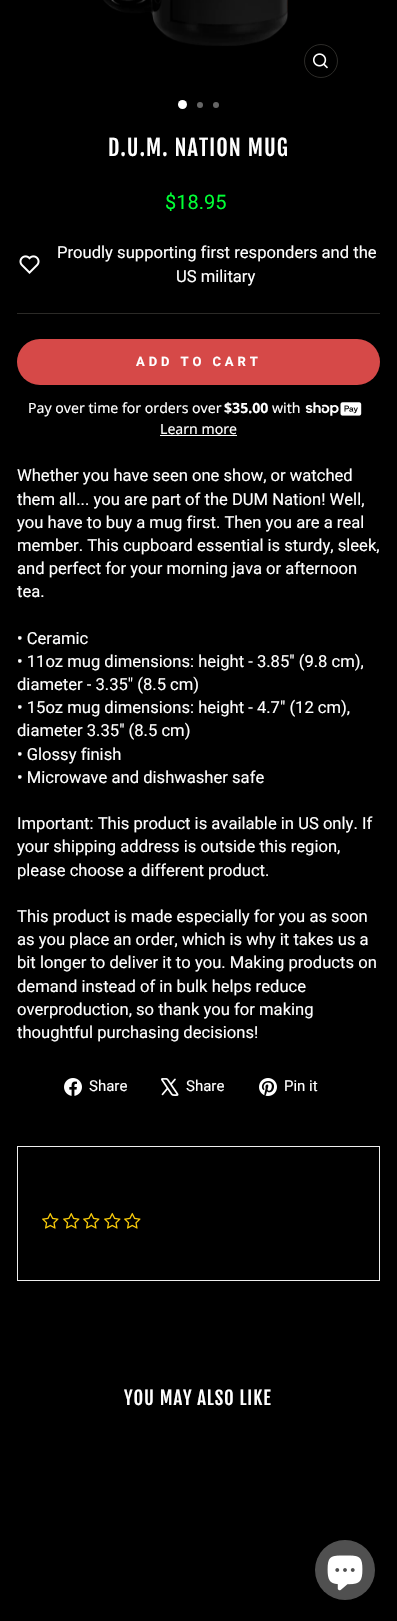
void draw(SkCanvas* canvas) {
	SkPaint fill;
	fill.setAntiAlias(true);
	auto makeFont = [&](const char* family, int weight, float size, bool italic = false) {
		SkFontStyle style(weight, SkFontStyle::kNormal_Width,
			italic ? SkFontStyle::kItalic_Slant : SkFontStyle::kUpright_Slant);
		SkFont result(fontMgr->matchFamilyStyle(family, style), size);
		result.setSubpixel(true);
		return result;
	};
	auto text = [&](const char* s, float x, float y, const SkFont& font) {
		canvas->drawString(s, x, y, font, fill);
	};
	auto spacedText = [&](const char* s, float x, float y, const SkFont& font, const SkPaint& ink, float letter, float word) {
		std::vector<SkGlyphID> glyphs(font.countText(s, strlen(s), SkTextEncoding::kUTF8));
		std::vector<float> xs(glyphs.size());
		font.textToGlyphs(s, strlen(s), SkTextEncoding::kUTF8, glyphs);
		font.getXPos(glyphs, xs, x);
		float extra = 0;
		for (size_t i = 0; i < glyphs.size(); i++) {
			xs[i] += extra;
			extra += letter + word * (glyphs[i] == font.unicharToGlyph(' '));
		}
		canvas->drawTextBlob(SkTextBlob::MakeFromPosHGlyphs(glyphs, xs, y, font), 0, 0, ink);
	};
	auto box = [&](float l, float t, float r, float b) {
		canvas->drawRect(SkRect::MakeLTRB(l, t, r, b), fill);
	};
	auto roundBox = [&](float l, float t, float r, float b, float radius) {
		canvas->drawRoundRect(SkRect::MakeLTRB(l, t, r, b), radius, radius, fill);
	};
	auto picture = [&](const char* path, float l, float t, float r, float b) {
		auto image = SkImages::DeferredFromEncodedData(SkData::MakeFromFileName(path));
		canvas->drawImageRect(image, SkRect::MakeLTRB(l, t, r, b), SkSamplingOptions());
	};
	canvas->clear(0xFF000000);
	picture("image0.png", 103, 0, 288, 46);
	fill.setStyle(SkPaint::kStroke_Style);
	fill.setStrokeWidth(1);
	fill.setColor(0xFF2B2A27);
	canvas->drawCircle(321, 61, 16.5f, fill);
	picture("image1.png", 313, 53, 328, 69);
	fill.setStyle(SkPaint::kFill_Style);
	fill.setColor(0xFFFFFFFF);
	canvas->drawCircle(182.5f, 104.5f, 4.5f, fill);
	fill.setColor(0xFF666666);
	canvas->drawCircle(200, 105, 3, fill);
	canvas->drawCircle(216, 105, 3, fill);
	picture("image2.png", 19, 255, 40, 274);
	fill.setColor(0xFF2B2A27);
	box(17, 313, 380, 314);
	fill.setColor(0xFFD64948);
	roundBox(17, 339, 380, 385, 23);
	picture("image3.png", 305, 402, 362, 416);
	fill.setColor(0xFFFFFFFF);
	box(160, 435, 237, 436);
	picture("image4.png", 64, 1078, 82, 1096);
	picture("image5.png", 161, 1078, 179, 1096);
	picture("image6.png", 259, 1078, 277, 1096);
	fill.setStyle(SkPaint::kStroke_Style);
	fill.setColor(0xFFEEEEEE);
	canvas->drawRect(SkRect::MakeLTRB(17.5f, 1146.5f, 379.5f, 1280.5f), fill);
	picture("image7.png", 42, 1212, 59, 1229);
	picture("image7.png", 63, 1212, 80, 1229);
	picture("image7.png", 83, 1212, 100, 1229);
	picture("image7.png", 104, 1212, 121, 1229);
	picture("image7.png", 124, 1212, 141, 1229);
	fill.setStyle(SkPaint::kFill_Style);
	fill.setColor(0xFF505050);
	canvas->drawCircle(345, 1570, 30, fill);
	picture("image8.png", 327, 1555, 363, 1591);
	auto font1 = makeFont("Fjalla One", 400, 22);
	fill.setColor(0xFFFFFFFF);
	spacedText("D.U.M. NATION MUG", 108, 156, font1, fill, 1.1f, 0);
	auto font2 = makeFont("Roboto", 400, 20);
	fill.setColor(0xFF00FF34);
	text("$18.95", 165, 209, font2);
	auto font3 = makeFont("Roboto", 400, 16.6f);
	fill.setColor(0xFFFFFFFF);
	text("Proudly supporting first responders and the", 57, 258, font3);
	text("US military", 176, 282, font3);
	auto font4 = makeFont("Roboto", 700, 13);
	spacedText("ADD TO CART", 136, 366, font4, fill, 3.9f, 0);
	auto font5 = makeFont("Noto Sans", 400, 14.1f);
	text("Pay over time for orders over", 28, 413, font5);
	auto font6 = makeFont("Noto Sans", 700, 14.1f);
	text("$35.00", 224, 413, font6);
	text("with", 272, 413, font5);
	text("Learn more", 160, 434, font5);
	text("Whether you have seen one show, or watched", 17, 481, font3);
	text("them all... you are part of the DUM Nation! Well,", 17, 505, font3);
	text("you have to buy a mug first. Then you are a real", 17, 528, font3);
	text("member. This cupboard essential is sturdy, sleek,", 17, 551, font3);
	text("and perfect for your morning java or afternoon", 17, 574, font3);
	text("tea.", 17, 597, font3);
	text("• Ceramic", 17, 644, font3);
	text("• 11oz mug dimensions: height - 3.85\" (9.8 cm),", 17, 667, font3);
	text("diameter - 3.35\" (8.5 cm)", 17, 690, font3);
	text("• 15oz mug dimensions: height - 4.7\" (12 cm),", 17, 713, font3);
	text("diameter 3.35\" (8.5 cm)", 17, 736, font3);
	text("• Glossy finish", 17, 760, font3);
	text("• Microwave and dishwasher safe", 17, 783, font3);
	text("Important: This product is available in US only. If", 17, 829, font3);
	text("your shipping address is outside this region,", 17, 852, font3);
	text("please choose a different product.", 17, 876, font3);
	text("This product is made especially for you as soon", 17, 922, font3);
	text("as you place an order, which is why it takes us a", 17, 945, font3);
	text("bit longer to deliver it to you. Making products on", 17, 968, font3);
	text("demand instead of in bulk helps reduce", 17, 992, font3);
	text("overproduction, so thank you for making", 17, 1015, font3);
	text("thoughtful purchasing decisions!", 17, 1038, font3);
	auto font7 = makeFont("Roboto", 400, 15);
	text("Share", 89, 1091, font7);
	text("Share", 186, 1091, font7);
	text("Pin it", 284, 1091, font7);
	auto font8 = makeFont("Fjalla One", 400, 18.5f);
	spacedText("YOU MAY ALSO LIKE", 124, 1405, font8, fill, 0.9f, 0);
}
